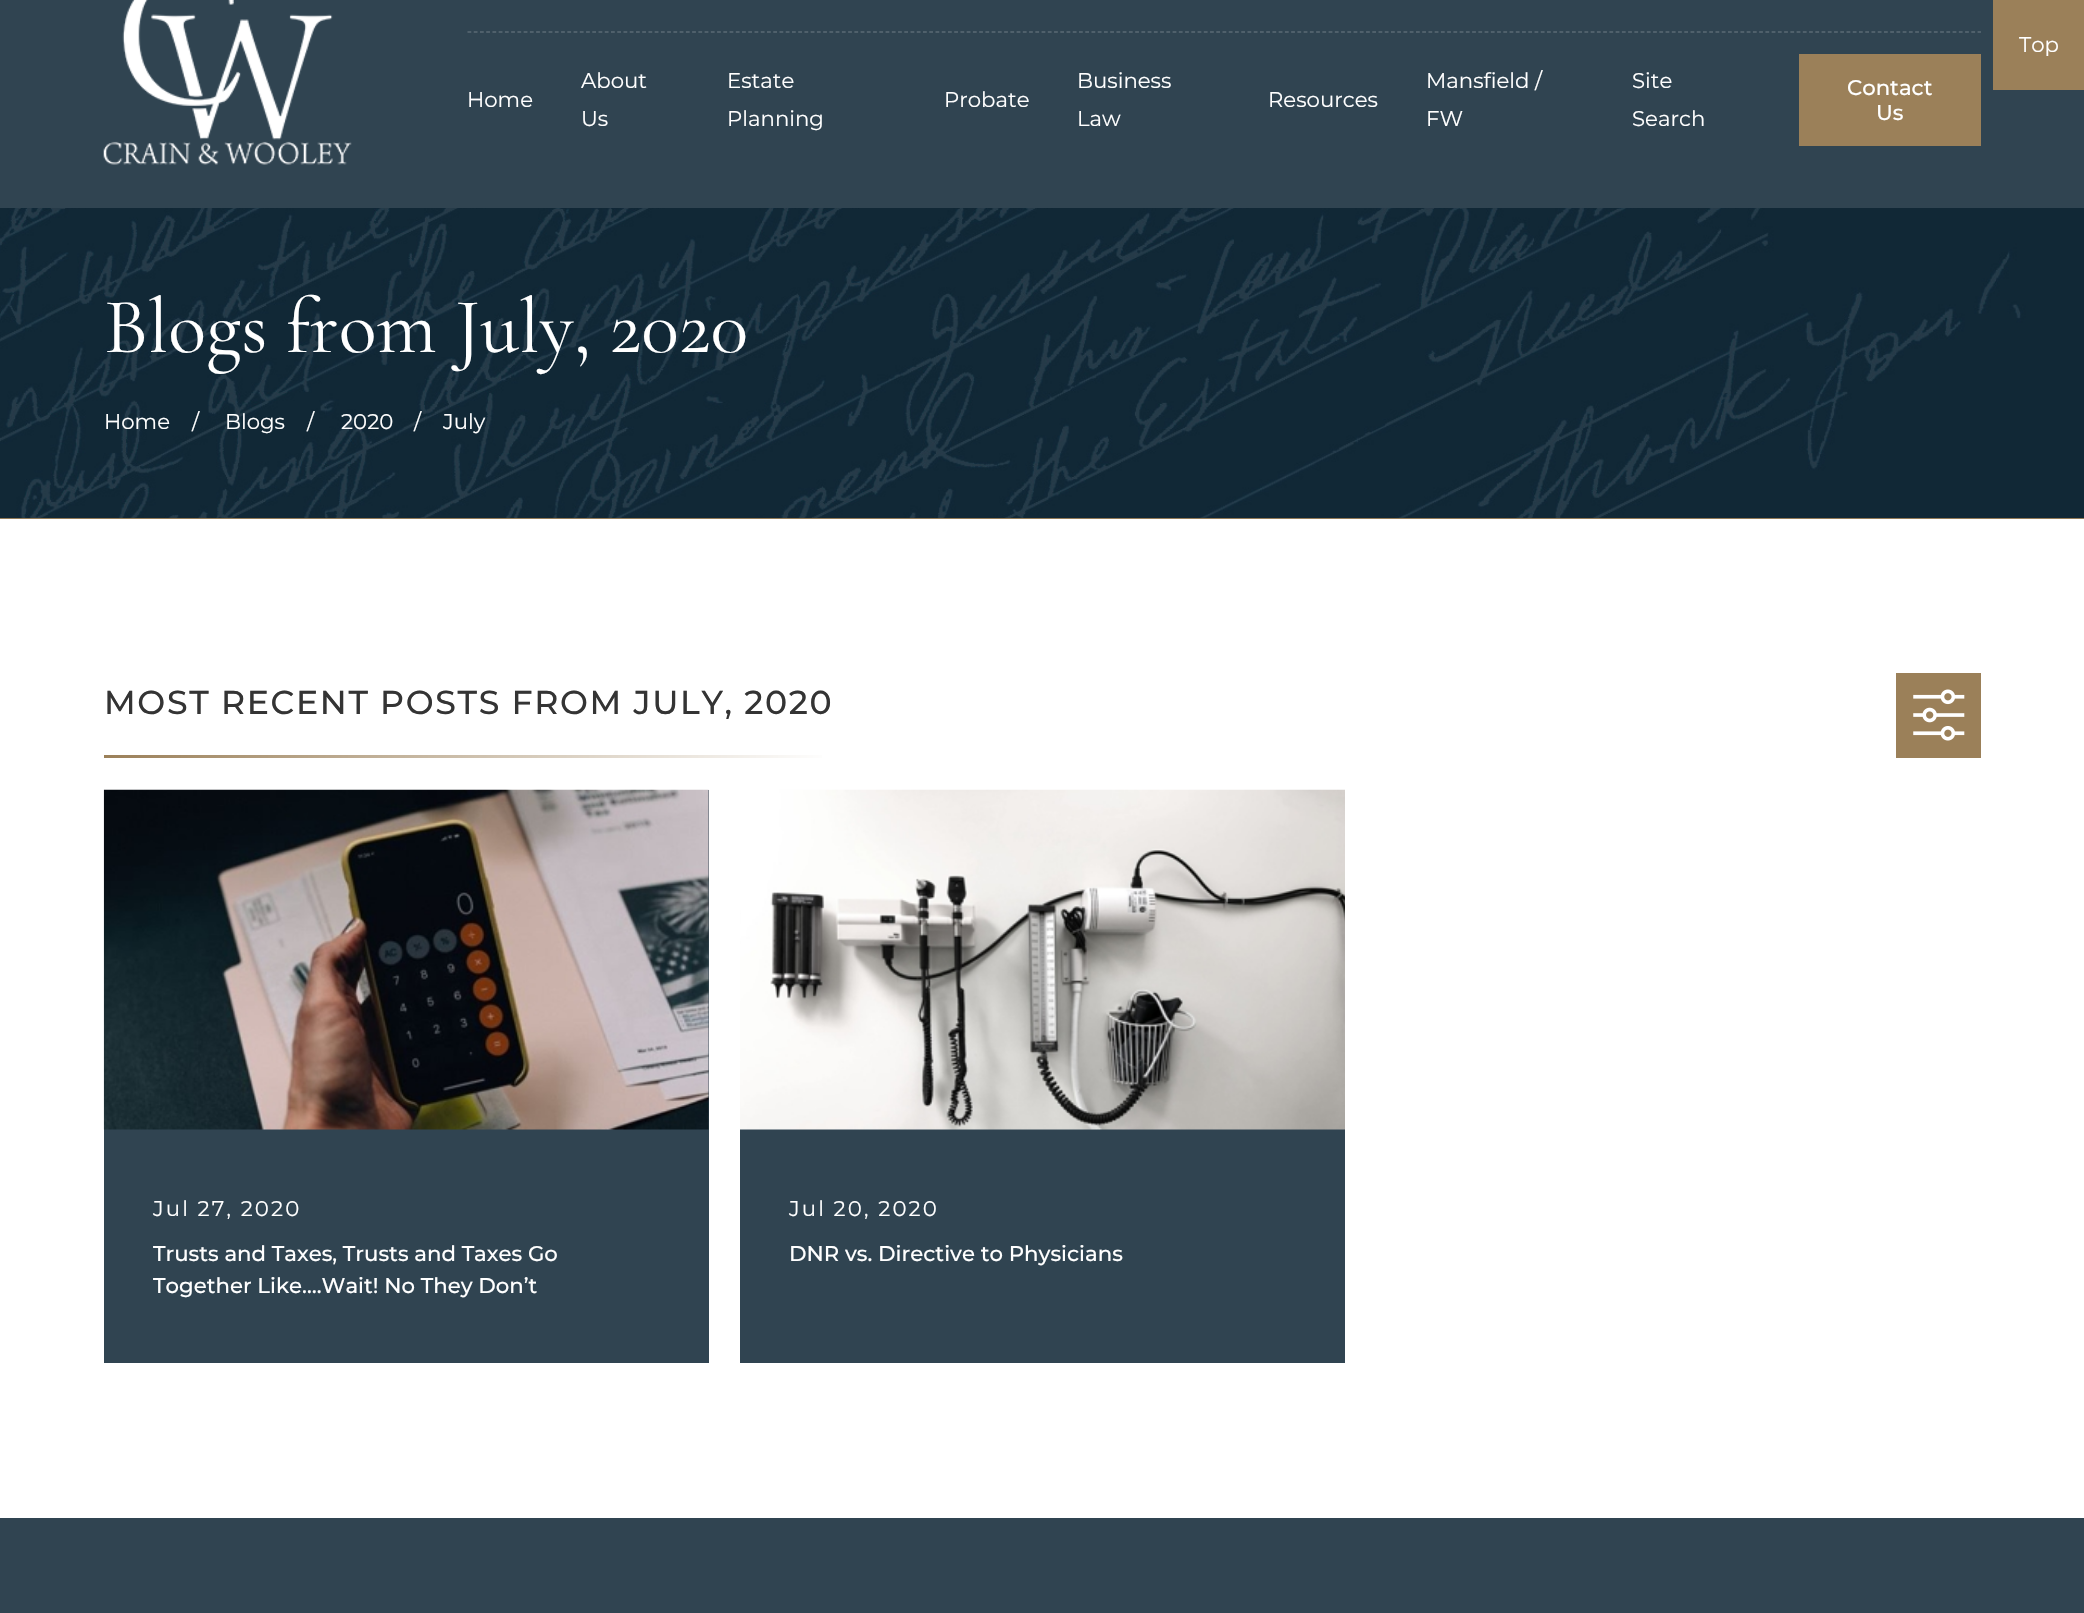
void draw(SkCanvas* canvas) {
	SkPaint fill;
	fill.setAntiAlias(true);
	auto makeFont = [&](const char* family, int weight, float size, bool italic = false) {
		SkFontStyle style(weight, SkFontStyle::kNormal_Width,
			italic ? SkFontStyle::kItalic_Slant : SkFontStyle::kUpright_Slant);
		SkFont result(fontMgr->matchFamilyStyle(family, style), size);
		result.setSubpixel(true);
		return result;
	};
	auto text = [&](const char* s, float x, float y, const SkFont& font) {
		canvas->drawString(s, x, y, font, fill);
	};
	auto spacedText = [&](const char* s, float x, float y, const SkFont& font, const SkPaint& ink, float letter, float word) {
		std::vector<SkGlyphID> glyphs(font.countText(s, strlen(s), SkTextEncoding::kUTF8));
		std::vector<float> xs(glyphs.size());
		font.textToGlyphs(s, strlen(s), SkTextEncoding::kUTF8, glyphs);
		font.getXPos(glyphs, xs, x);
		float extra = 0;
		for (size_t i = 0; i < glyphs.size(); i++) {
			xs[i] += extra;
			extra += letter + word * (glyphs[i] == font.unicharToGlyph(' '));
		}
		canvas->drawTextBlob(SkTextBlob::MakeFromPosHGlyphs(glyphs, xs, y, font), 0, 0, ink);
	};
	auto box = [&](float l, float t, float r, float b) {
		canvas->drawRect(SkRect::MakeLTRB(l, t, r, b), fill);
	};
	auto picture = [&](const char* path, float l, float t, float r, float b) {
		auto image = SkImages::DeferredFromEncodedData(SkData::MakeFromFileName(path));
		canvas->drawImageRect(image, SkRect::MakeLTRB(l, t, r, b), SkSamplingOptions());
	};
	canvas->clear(0xFFFFFFFF);
	fill.setColor(0xFF304451);
	box(0, 0, 2084, 208);
	fill.setColor(0xFF9B8059);
	box(1993, 0, 2084, 90);
	picture("image0.png", 103, 0, 352, 165);
	fill.setStyle(SkPaint::kStroke_Style);
	fill.setStrokeWidth(1.2f);
	fill.setColor(0xFF6E7C85);
	fill.setPathEffect(SkDashPathEffect::Make({{3.75f, 2.49f}}, 0));
	canvas->drawPath(SkPathBuilder().moveTo(467.5f, 32).lineTo(1981, 32).detach(), fill);
	fill.setPathEffect(nullptr);
	fill.setStyle(SkPaint::kFill_Style);
	fill.setColor(0xFF9B8059);
	box(1799, 54, 1981, 146);
	box(0, 518, 2084, 519);
	picture("image1.png", 0, 208, 2084, 519);
	{
		const SkColor colors[] = {0xFF9B8059, 0xFFFFFFFF};
		const float stops[] = {0, 1};
		const SkPoint ends[] = {{104, 756}, {833, 756}};
		fill.setShader(SkGradientShader::MakeLinear(ends, colors, stops, 2, SkTileMode::kClamp));
		fill.setAlpha(255);
	}
	box(104, 755, 822, 758);
	fill.setShader(nullptr);
	fill.setColor(0xFF9B8059);
	box(1896, 673, 1981, 758);
	picture("image2.png", 1913, 689, 1965, 741);
	fill.setColor(0xFF304451);
	box(104, 790, 709, 1363);
	picture("image3.png", 103, 789, 709, 1130);
	box(740, 1129, 1345, 1363);
	picture("image4.png", 740, 789, 1345, 1130);
	box(0, 1518, 2084, 1613);
	auto font1 = makeFont("Montserrat", 400, 21.25f);
	fill.setColor(0xFFFFFFFF);
	text("Top", 2019, 52, font1);
	text("Home", 467, 107, font1);
	text("About", 581, 88, font1);
	text("Us", 581, 126, font1);
	text("Estate", 727, 88, font1);
	text("Planning", 727, 126, font1);
	text("Probate", 944, 107, font1);
	text("Business", 1077, 88, font1);
	text("Law", 1077, 126, font1);
	text("Resources", 1268, 107, font1);
	text("Mansfield /", 1426, 88, font1);
	text("FW", 1426, 126, font1);
	text("Site", 1632, 88, font1);
	text("Search", 1632, 126, font1);
	auto font2 = makeFont("Montserrat", 500, 21.25f);
	text("Contact", 1847, 95, font2);
	text("Us", 1876, 120, font2);
	auto font3 = makeFont("Cormorant Garamond", 400, 78.75f);
	text("Blogs from July, 2020", 104, 352, font3);
	text("Home", 104, 429, font1);
	text("/", 192, 429, font1);
	text("Blogs", 225, 429, font1);
	text("/", 307, 429, font1);
	text("2020", 341, 429, font1);
	text("/", 414, 429, font1);
	text("July", 443, 429, font1);
	auto font4 = makeFont("Montserrat", 500, 33.2f);
	fill.setColor(0xFF343434);
	spacedText("MOST RECENT POSTS FROM JULY, 2020", 104, 714, font4, fill, 1.65f, 0);
	fill.setColor(0xFFFFFFFF);
	spacedText("Jul 27, 2020", 153, 1216, font1, fill, 2.1f, 0);
	text("Trusts and Taxes, Trusts and Taxes Go", 153, 1261, font2);
	text("Together Like….Wait! No They Don’t", 153, 1293, font2);
	spacedText("Jul 20, 2020", 789, 1216, font1, fill, 2.1f, 0);
	text("DNR vs. Directive to Physicians", 789, 1261, font2);
}
